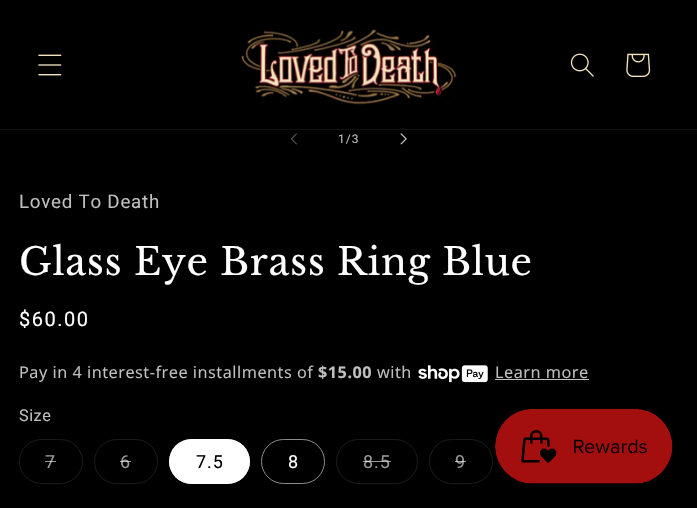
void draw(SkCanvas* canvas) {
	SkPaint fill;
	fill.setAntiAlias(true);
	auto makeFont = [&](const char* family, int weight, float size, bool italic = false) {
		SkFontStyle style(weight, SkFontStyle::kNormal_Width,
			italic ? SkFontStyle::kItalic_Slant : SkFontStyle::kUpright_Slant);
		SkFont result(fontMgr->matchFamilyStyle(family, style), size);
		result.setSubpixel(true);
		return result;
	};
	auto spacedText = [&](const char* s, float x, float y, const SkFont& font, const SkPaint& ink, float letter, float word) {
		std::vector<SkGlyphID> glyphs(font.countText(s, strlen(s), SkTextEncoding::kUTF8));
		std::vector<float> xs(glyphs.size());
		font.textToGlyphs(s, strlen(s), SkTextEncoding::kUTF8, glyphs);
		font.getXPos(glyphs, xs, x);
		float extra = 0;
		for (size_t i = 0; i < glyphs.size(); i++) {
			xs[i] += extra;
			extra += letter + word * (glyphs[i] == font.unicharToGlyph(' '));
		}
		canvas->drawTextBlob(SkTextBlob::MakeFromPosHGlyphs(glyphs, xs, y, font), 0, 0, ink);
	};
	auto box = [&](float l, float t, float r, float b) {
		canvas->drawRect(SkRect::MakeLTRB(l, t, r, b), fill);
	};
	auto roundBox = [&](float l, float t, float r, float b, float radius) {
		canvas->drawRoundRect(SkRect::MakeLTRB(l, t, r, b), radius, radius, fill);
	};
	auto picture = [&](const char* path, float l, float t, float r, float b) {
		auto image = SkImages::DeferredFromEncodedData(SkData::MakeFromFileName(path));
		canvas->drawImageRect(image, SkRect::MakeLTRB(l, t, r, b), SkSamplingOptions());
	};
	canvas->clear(0xFF000000);
	fill.setColor(0xFF13120F);
	box(0, 129, 697, 130);
	picture("image0.png", 38, 54, 62, 76);
	picture("image1.png", 240, 29, 457, 106);
	picture("image2.png", 570, 53, 594, 77);
	picture("image3.png", 626, 53, 651, 77);
	picture("image4.png", 290, 133, 297, 145);
	picture("image5.png", 400, 133, 407, 145);
	picture("image6.png", 418, 365, 488, 383);
	fill.setColor(0xFFBFBFBF);
	box(495, 379, 589, 380);
	fill.setStyle(SkPaint::kStroke_Style);
	fill.setStrokeWidth(1);
	fill.setColor(0xFF1A1A1A);
	canvas->drawRoundRect(SkRect::MakeLTRB(19.5f, 439.5f, 82.5f, 483.5f), 22, 22, fill);
	canvas->drawRoundRect(SkRect::MakeLTRB(94.5f, 439.5f, 157.5f, 483.5f), 22, 22, fill);
	fill.setStyle(SkPaint::kFill_Style);
	fill.setColor(0xFFFFFFFF);
	roundBox(169, 439, 250, 484, 22.5f);
	fill.setStyle(SkPaint::kStroke_Style);
	fill.setColor(0x8CFFFFFF);
	canvas->drawRoundRect(SkRect::MakeLTRB(169.5f, 439.5f, 249.5f, 483.5f), 22, 22, fill);
	fill.setColor(0xFF8C8C8C);
	canvas->drawRoundRect(SkRect::MakeLTRB(261.5f, 439.5f, 324.5f, 483.5f), 22, 22, fill);
	fill.setColor(0xFF1A1A1A);
	canvas->drawRoundRect(SkRect::MakeLTRB(336.5f, 439.5f, 417.5f, 483.5f), 22, 22, fill);
	canvas->drawRoundRect(SkRect::MakeLTRB(429.5f, 439.5f, 492.5f, 483.5f), 22, 22, fill);
	picture("image7.png", 495, 409, 673, 484);
	auto font1 = makeFont("Roboto", 400, 12);
	fill.setStyle(SkPaint::kFill_Style);
	fill.setColor(0xFFBFBFBF);
	spacedText("1/3", 338, 143, font1, fill, 1, 0);
	auto font2 = makeFont("Roboto", 400, 18.75f);
	spacedText("Loved To Death", 19, 208, font2, fill, 0.75f, 0);
	auto font3 = makeFont("Libre Baskerville", 400, 37.5f);
	fill.setColor(0xFFFFFFFF);
	spacedText("Glass Eye Brass Ring Blue", 19, 275, font3, fill, 0.75f, 0);
	auto font4 = makeFont("Roboto", 400, 20);
	spacedText("$60.00", 19, 326, font4, fill, 1.5f, 0);
	auto font5 = makeFont("Noto Sans", 400, 16.25f);
	fill.setColor(0xFFBFBFBF);
	spacedText("Pay in 4 interest-free installments of", 19, 378, font5, fill, 0.5f, 0);
	auto font6 = makeFont("Noto Sans", 700, 16.25f);
	spacedText("$15.00", 318, 378, font6, fill, 0.5f, 0);
	spacedText("with", 377, 378, font5, fill, 0.5f, 0);
	spacedText("Learn more", 495, 378, font5, fill, 0.5f, 0);
	auto font7 = makeFont("Roboto", 400, 16.25f);
	spacedText("Size", 19, 421, font7, fill, 0.5f, 0);
	auto font8 = makeFont("Roboto", 400, 18);
	fill.setColor(0xFF999999);
	spacedText("7", 45, 468, font8, fill, 1, 0);
	fill.setColor(0x99FFFFFF);
	box(45, 461, 56, 462);
	fill.setColor(0xFF999999);
	spacedText("6", 120, 468, font8, fill, 1, 0);
	fill.setColor(0x99FFFFFF);
	box(120, 461, 131, 462);
	fill.setColor(0xFF000000);
	spacedText("7.5", 196, 468, font8, fill, 1, 0);
	fill.setColor(0xFFFFFFFF);
	spacedText("8", 288, 468, font8, fill, 1, 0);
	fill.setColor(0xFF999999);
	spacedText("8.5", 363, 468, font8, fill, 1, 0);
	fill.setColor(0x99FFFFFF);
	box(363, 461, 391, 462);
	fill.setColor(0xFF999999);
	spacedText("9", 455, 468, font8, fill, 1, 0);
	fill.setColor(0x99FFFFFF);
	box(455, 461, 466, 462);
}
